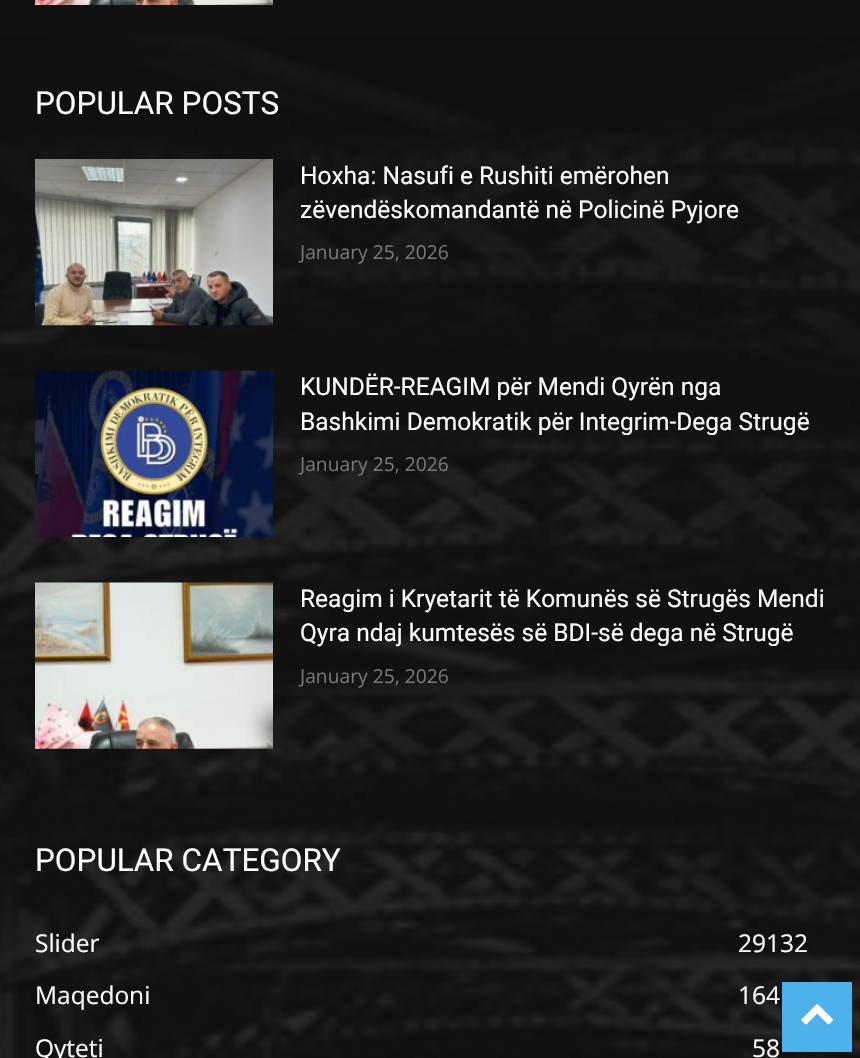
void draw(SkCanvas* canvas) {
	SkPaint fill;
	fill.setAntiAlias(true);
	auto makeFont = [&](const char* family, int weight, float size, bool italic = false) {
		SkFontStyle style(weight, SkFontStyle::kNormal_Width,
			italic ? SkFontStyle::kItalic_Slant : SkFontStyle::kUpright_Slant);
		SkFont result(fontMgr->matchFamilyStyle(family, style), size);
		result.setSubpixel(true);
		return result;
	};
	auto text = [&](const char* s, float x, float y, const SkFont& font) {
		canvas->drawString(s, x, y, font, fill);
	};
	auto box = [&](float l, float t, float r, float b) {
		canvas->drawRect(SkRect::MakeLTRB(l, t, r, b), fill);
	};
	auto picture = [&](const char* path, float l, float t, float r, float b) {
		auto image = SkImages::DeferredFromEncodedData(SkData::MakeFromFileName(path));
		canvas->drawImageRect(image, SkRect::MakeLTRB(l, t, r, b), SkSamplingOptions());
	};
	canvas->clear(0xFF111111);
	picture("image0.png", 0, 36, 860, 1058);
	picture("image1.png", 35, 0, 273, 5);
	picture("image2.png", 35, 159, 273, 326);
	picture("image3.png", 35, 370, 273, 537);
	picture("image4.png", 35, 582, 273, 749);
	fill.setColor(0xFF4DB2EC);
	box(782, 982, 852, 1052);
	picture("image5.png", 801, 1004, 833, 1025);
	auto font1 = makeFont("Roboto", 400, 31.5f);
	fill.setColor(0xFFFFFFFF);
	text("POPULAR POSTS", 35, 114, font1);
	auto font2 = makeFont("Roboto", 400, 24.5f);
	text("Hoxha: Nasufi e Rushiti emërohen", 300, 184, font2);
	text("zëvendëskomandantë në Policinë Pyjore", 300, 218, font2);
	auto font3 = makeFont("Open Sans", 400, 19.25f);
	fill.setColor(0xFF767676);
	text("January 25, 2026", 300, 259, font3);
	fill.setColor(0xFFFFFFFF);
	text("KUNDËR-REAGIM për Mendi Qyrën nga", 300, 395, font2);
	text("Bashkimi Demokratik për Integrim-Dega Strugë", 300, 430, font2);
	fill.setColor(0xFF767676);
	text("January 25, 2026", 300, 471, font3);
	fill.setColor(0xFFFFFFFF);
	text("Reagim i Kryetarit të Komunës së Strugës Mendi", 300, 607, font2);
	text("Qyra ndaj kumtesës së BDI-së dega në Strugë", 300, 641, font2);
	fill.setColor(0xFF767676);
	text("January 25, 2026", 300, 683, font3);
	fill.setColor(0xFFFFFFFF);
	text("POPULAR CATEGORY", 35, 871, font1);
	auto font4 = makeFont("Open Sans", 400, 24.5f);
	text("Slider", 35, 952, font4);
	text("29132", 738, 952, font4);
	text("Maqedoni", 35, 1004, font4);
	text("164", 738, 1004, font4);
	text("Qyteti", 35, 1057, font4);
	text("58", 752, 1057, font4);
}
